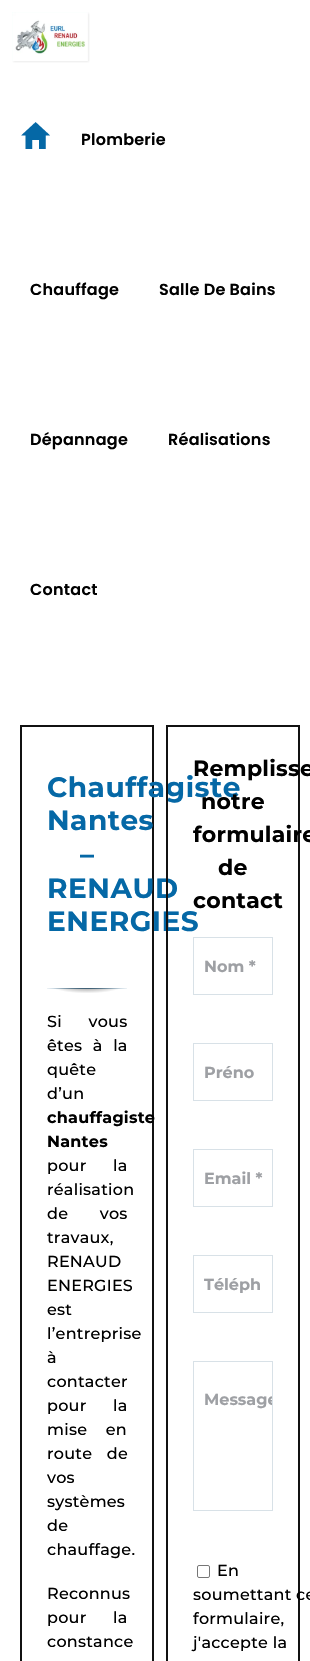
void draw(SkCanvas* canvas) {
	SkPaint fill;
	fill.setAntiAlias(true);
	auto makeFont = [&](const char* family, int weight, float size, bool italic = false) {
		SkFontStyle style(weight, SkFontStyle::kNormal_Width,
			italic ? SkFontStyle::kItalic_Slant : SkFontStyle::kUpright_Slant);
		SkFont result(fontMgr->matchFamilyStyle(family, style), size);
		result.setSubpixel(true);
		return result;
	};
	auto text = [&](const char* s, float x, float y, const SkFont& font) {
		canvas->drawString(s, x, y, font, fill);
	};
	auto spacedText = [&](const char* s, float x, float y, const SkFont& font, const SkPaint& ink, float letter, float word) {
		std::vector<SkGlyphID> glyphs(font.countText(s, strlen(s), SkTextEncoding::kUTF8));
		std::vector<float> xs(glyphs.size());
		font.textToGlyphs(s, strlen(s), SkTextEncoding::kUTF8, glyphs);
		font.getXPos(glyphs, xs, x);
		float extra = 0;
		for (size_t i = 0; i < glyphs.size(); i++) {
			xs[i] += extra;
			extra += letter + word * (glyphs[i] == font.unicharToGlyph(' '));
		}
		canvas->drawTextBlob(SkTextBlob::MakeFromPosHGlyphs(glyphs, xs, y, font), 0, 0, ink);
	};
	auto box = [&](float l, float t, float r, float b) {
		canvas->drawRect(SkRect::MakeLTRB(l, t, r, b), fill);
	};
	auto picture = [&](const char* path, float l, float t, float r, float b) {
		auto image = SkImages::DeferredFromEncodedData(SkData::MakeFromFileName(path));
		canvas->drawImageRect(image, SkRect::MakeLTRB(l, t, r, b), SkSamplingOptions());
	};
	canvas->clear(0xFFFFFFFF);
	picture("image0.png", 12, 12, 90, 63);
	picture("image1.png", 21, 122, 50, 149);
	fill.setStyle(SkPaint::kStroke_Style);
	fill.setStrokeWidth(2);
	fill.setColor(0xFF111111);
	canvas->drawRect(SkRect::MakeLTRB(21, 726, 153, 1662), fill);
	fill.setStyle(SkPaint::kFill_Style);
	{
		const SkColor colors[] = {0xFF145580, 0xFFFFFFFF};
		const float stops[] = {0, 0.8f};
		SkMatrix m = SkMatrix::Translate(87, 988).preScale(57, 2.1f);
		fill.setShader(SkGradientShader::MakeRadial({0, 0}, 1, colors, stops, 2, SkTileMode::kClamp, 0, &m));
		fill.setAlpha(255);
	}
	box(47, 988, 127, 989);
	{
		const SkColor colors[] = {0x80000000, 0x00000000};
		const float stops[] = {0, 0.65f};
		SkMatrix m = SkMatrix::Translate(87, 985).preScale(57, 13);
		fill.setShader(SkGradientShader::MakeRadial({0, 0}, 1, colors, stops, 2, SkTileMode::kClamp, 0, &m));
		fill.setAlpha(255);
	}
	box(47, 988, 127, 993);
	auto font1 = makeFont("Poppins", 600, 16);
	fill.setShader(nullptr);
	fill.setColor(0xFF000000);
	spacedText("Plomberie", 81, 145, font1, fill, 0.25f, 0);
	spacedText("Chauffage", 30, 295, font1, fill, 0.25f, 0);
	spacedText("Salle De Bains", 159, 295, font1, fill, 0.25f, 0);
	spacedText("Dépannage", 30, 445, font1, fill, 0.25f, 0);
	spacedText("Réalisations", 168, 445, font1, fill, 0.25f, 0);
	spacedText("Contact", 30, 595, font1, fill, 0.25f, 0);
	auto font2 = makeFont("Montserrat", 700, 28);
	fill.setColor(0xFF0568A6);
	spacedText("Chauffagiste", 47, 797, font2, fill, 0.5f, 0);
	spacedText("Nantes", 47, 830, font2, fill, 0.5f, 0);
	spacedText("–", 80, 864, font2, fill, 0.5f, 0);
	spacedText("RENAUD", 47, 898, font2, fill, 0.5f, 0);
	spacedText("ENERGIES", 47, 931, font2, fill, 0.5f, 0);
	auto font3 = makeFont("Montserrat", 500, 16);
	fill.setColor(0xFF000000);
	spacedText("Si vous", 47, 1027, font3, fill, 0.25f, 22);
	spacedText("êtes à la", 47, 1051, font3, fill, 0.25f, 6);
	spacedText("quête", 47, 1075, font3, fill, 0.25f, 0);
	spacedText("d’un", 47, 1099, font3, fill, 0.25f, 0);
	auto font4 = makeFont("Montserrat", 700, 16);
	spacedText("chauffagiste", 47, 1123, font4, fill, 0.25f, 0);
	spacedText("Nantes", 47, 1147, font4, fill, 0.25f, 0);
	spacedText("pour la", 47, 1171, font3, fill, 0.25f, 22);
	spacedText("réalisation", 47, 1195, font3, fill, 0.25f, 0);
	spacedText("de vos", 47, 1219, font3, fill, 0.25f, 27);
	spacedText("travaux,", 47, 1243, font3, fill, 0.25f, 0);
	spacedText("RENAUD", 47, 1267, font3, fill, 0.25f, 0);
	spacedText("ENERGIES", 47, 1291, font3, fill, 0.25f, 0);
	spacedText("est", 47, 1315, font3, fill, 0.25f, 0);
	spacedText("l’entreprise", 47, 1339, font3, fill, 0.25f, 0);
	spacedText("à", 47, 1363, font3, fill, 0.25f, 0);
	spacedText("contacter", 47, 1387, font3, fill, 0.25f, 0);
	spacedText("pour la", 47, 1411, font3, fill, 0.25f, 22);
	spacedText("mise en", 47, 1435, font3, fill, 0.25f, 14);
	spacedText("route de", 47, 1459, font3, fill, 0.25f, 10);
	spacedText("vos", 47, 1483, font3, fill, 0.25f, 0);
	spacedText("systèmes", 47, 1507, font3, fill, 0.25f, 0);
	spacedText("de", 47, 1531, font3, fill, 0.25f, 0);
	spacedText("chauffage.", 47, 1555, font3, fill, 0.25f, 0);
	spacedText("Reconnus", 47, 1599, font3, fill, 0.25f, 0);
	spacedText("pour la", 47, 1623, font3, fill, 0.25f, 22);
	spacedText("constance", 47, 1647, font3, fill, 0.25f, 0);
	fill.setStyle(SkPaint::kStroke_Style);
	fill.setColor(0xFF111111);
	canvas->drawRect(SkRect::MakeLTRB(167, 726, 299, 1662), fill);
	auto font5 = makeFont("Montserrat", 700, 22);
	fill.setStyle(SkPaint::kFill_Style);
	fill.setColor(0xFF000000);
	spacedText("Remplisse", 193, 776, font5, fill, 0.25f, 0);
	spacedText("notre", 201, 809, font5, fill, 0.25f, 0);
	spacedText("formulaire", 193, 842, font5, fill, 0.25f, 0);
	spacedText("de", 218, 875, font5, fill, 0.25f, 0);
	spacedText("contact", 193, 908, font5, fill, 0.25f, 0);
	fill.setStyle(SkPaint::kStroke_Style);
	fill.setStrokeWidth(1);
	fill.setColor(0xFFD8E1E7);
	canvas->drawRect(SkRect::MakeLTRB(193.5f, 937.5f, 272.5f, 994.5f), fill);
	fill.setStyle(SkPaint::kFill_Style);
	fill.setColor(0xFF9EA0A4);
	text("Nom *", 204, 972, font4);
	fill.setStyle(SkPaint::kStroke_Style);
	fill.setColor(0xFFD8E1E7);
	canvas->drawRect(SkRect::MakeLTRB(193.5f, 1043.5f, 272.5f, 1100.5f), fill);
	fill.setStyle(SkPaint::kFill_Style);
	fill.setColor(0xFF9EA0A4);
	text("Préno", 204, 1078, font4);
	fill.setStyle(SkPaint::kStroke_Style);
	fill.setColor(0xFFD8E1E7);
	canvas->drawRect(SkRect::MakeLTRB(193.5f, 1149.5f, 272.5f, 1206.5f), fill);
	fill.setStyle(SkPaint::kFill_Style);
	fill.setColor(0xFF9EA0A4);
	text("Email *", 204, 1184, font4);
	fill.setStyle(SkPaint::kStroke_Style);
	fill.setColor(0xFFD8E1E7);
	canvas->drawRect(SkRect::MakeLTRB(193.5f, 1255.5f, 272.5f, 1312.5f), fill);
	canvas->save();
	canvas->clipRect(SkRect::MakeLTRB(204, 1275, 262, 1294));
	fill.setStyle(SkPaint::kFill_Style);
	fill.setColor(0xFF9EA0A4);
	text("Téléph", 204, 1290, font4);
	canvas->restore();
	fill.setStyle(SkPaint::kStroke_Style);
	fill.setColor(0xFFD8E1E7);
	canvas->drawRect(SkRect::MakeLTRB(193.5f, 1361.5f, 272.5f, 1510.5f), fill);
	canvas->save();
	canvas->clipRect(SkRect::MakeLTRB(194, 1362, 272, 1510));
	fill.setStyle(SkPaint::kFill_Style);
	fill.setColor(0xFF9EA0A4);
	text("Message", 204, 1405, font4);
	canvas->restore();
	fill.setStyle(SkPaint::kStroke_Style);
	fill.setColor(0xFF767676);
	canvas->drawRoundRect(SkRect::MakeLTRB(197.5f, 1565.5f, 209.5f, 1577.5f), 1.5f, 1.5f, fill);
	fill.setStyle(SkPaint::kFill_Style);
	fill.setColor(0xFF000000);
	spacedText("En", 217, 1576, font3, fill, 0.25f, 0);
	spacedText("soumettant ce", 193, 1600, font3, fill, 0.25f, 0);
	spacedText("formulaire,", 193, 1624, font3, fill, 0.25f, 0);
	spacedText("j'accepte la", 193, 1648, font3, fill, 0.25f, 0);
}
